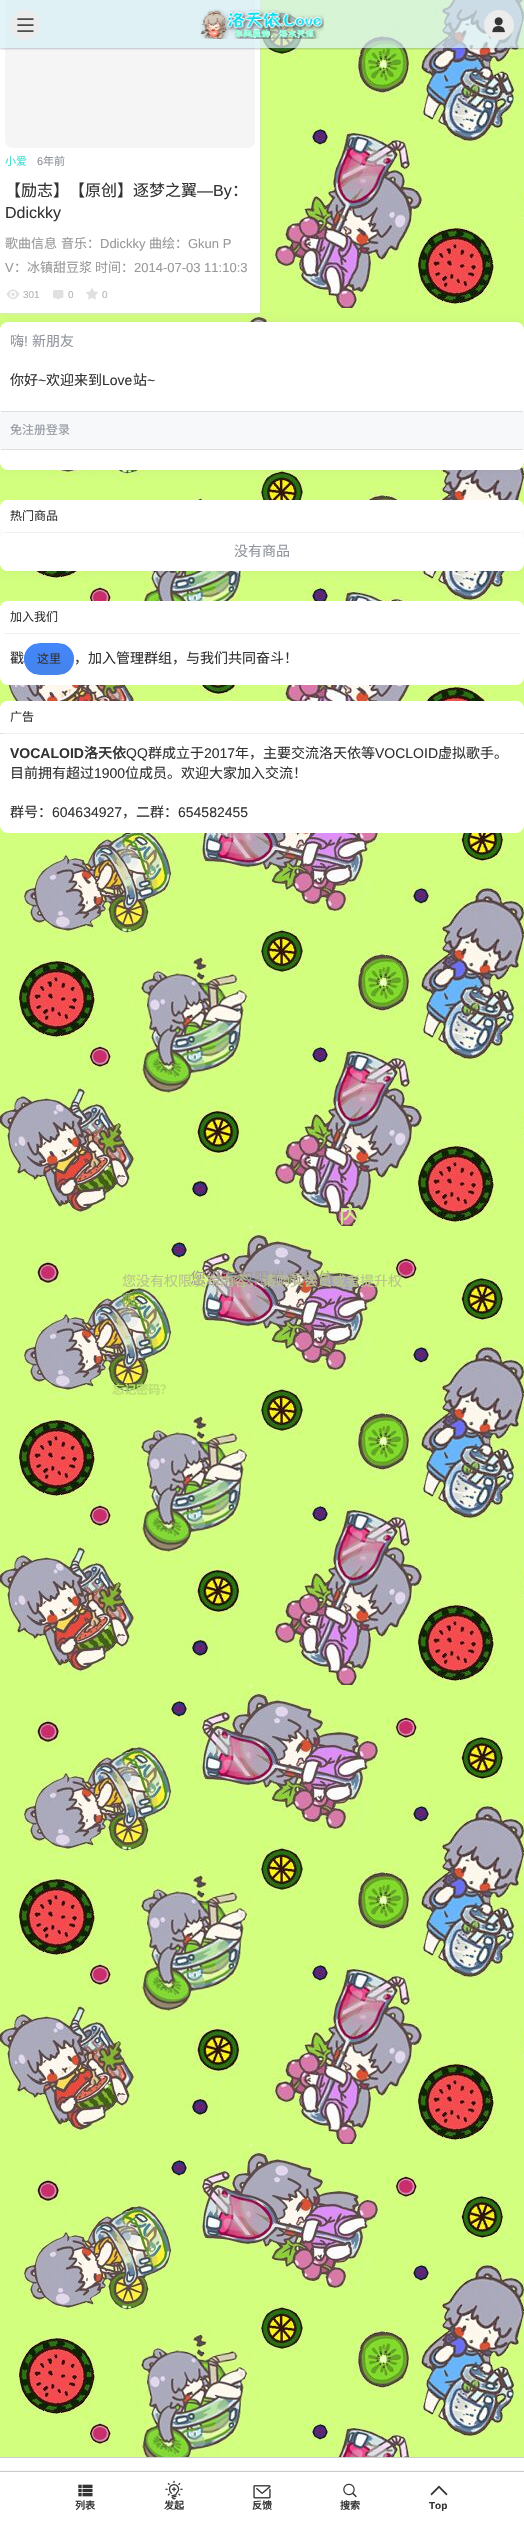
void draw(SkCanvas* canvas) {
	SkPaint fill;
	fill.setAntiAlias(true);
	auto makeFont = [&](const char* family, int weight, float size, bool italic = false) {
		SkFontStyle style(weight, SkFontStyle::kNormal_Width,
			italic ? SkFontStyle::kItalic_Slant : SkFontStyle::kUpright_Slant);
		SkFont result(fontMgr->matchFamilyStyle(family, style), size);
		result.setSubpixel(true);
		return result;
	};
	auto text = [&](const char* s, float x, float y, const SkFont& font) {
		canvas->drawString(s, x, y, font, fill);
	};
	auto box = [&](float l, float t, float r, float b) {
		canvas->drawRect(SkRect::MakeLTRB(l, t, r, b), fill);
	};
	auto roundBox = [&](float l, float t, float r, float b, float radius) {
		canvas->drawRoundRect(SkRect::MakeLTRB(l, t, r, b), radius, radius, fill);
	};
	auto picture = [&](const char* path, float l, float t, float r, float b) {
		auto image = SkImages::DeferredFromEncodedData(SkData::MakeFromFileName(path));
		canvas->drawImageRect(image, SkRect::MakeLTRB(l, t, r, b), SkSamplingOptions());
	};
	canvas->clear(0xFFFFFFFF);
	picture("image0.png", 0, 0, 524, 2457);
	canvas->save();
	canvas->clipPath(SkPathBuilder().moveTo(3, -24).lineTo(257, -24).cubicTo(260, -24, 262, -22, 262, -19).lineTo(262, 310).cubicTo(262, 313, 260, 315, 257, 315).lineTo(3, 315).cubicTo(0, 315, -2, 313, -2, 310).lineTo(-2, -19).cubicTo(-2, -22, 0, -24, 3, -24).close().detach(), true);
	fill.setColor(0xFFDDDDDD);
	fill.setMaskFilter(SkMaskFilter::MakeBlur(kNormal_SkBlurStyle, 7.5f));
	canvas->drawRect(SkRect::MakeLTRB(0, -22, 260, 313), fill);
	fill.setMaskFilter(nullptr);
	canvas->restore();
	fill.setColor(0xFFFFFFFF);
	box(0, 0, 260, 313);
	fill.setColor(0xFFF5F5F5);
	roundBox(5, -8, 255, 148, 8);
	canvas->save();
	canvas->clipRect(SkRect::MakeLTRB(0, 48, 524, 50));
	fill.setColor(0x4A2B3B5D);
	fill.setMaskFilter(SkMaskFilter::MakeBlur(kNormal_SkBlurStyle, 1));
	canvas->drawRect(SkRect::MakeLTRB(0, 1, 524, 49), fill);
	fill.setMaskFilter(nullptr);
	canvas->restore();
	fill.setColor(0x4D17A2CC);
	box(0, 0, 524, 48);
	fill.setColor(0x99FFFFFF);
	box(0, 0, 524, 48);
	fill.setColor(0xFFECECEC);
	canvas->drawCircle(25, 25, 15, fill);
	picture("image1.png", 17, 18, 34, 32);
	picture("image2.png", 200, 9, 324, 39);
	canvas->drawCircle(499, 25, 15, fill);
	picture("image3.png", 492, 17, 505, 33);
	picture("image4.png", 6, 289, 20, 300);
	picture("image5.png", 53, 290, 64, 300);
	picture("image6.png", 86, 288, 98, 300);
	fill.setColor(0x0D000000);
	fill.setMaskFilter(SkMaskFilter::MakeBlur(kNormal_SkBlurStyle, 5));
	canvas->drawRoundRect(SkRect::MakeLTRB(0, 322, 524, 470), 8, 8, fill);
	fill.setMaskFilter(nullptr);
	fill.setColor(0xFFFFFFFF);
	roundBox(0, 322, 524, 470, 8);
	fill.setColor(0xFFF7F8FA);
	roundBox(0, 411, 524, 450, 2);
	fill.setColor(0xFFDDDFE2);
	box(1, 411, 523, 412);
	box(1, 449, 523, 450);
	fill.setColor(0xFFFFFFFF);
	roundBox(0, 500, 524, 571, 8);
	fill.setColor(0x0D000000);
	fill.setMaskFilter(SkMaskFilter::MakeBlur(kNormal_SkBlurStyle, 5));
	canvas->drawRoundRect(SkRect::MakeLTRB(0, 532, 524, 571), 8, 8, fill);
	fill.setMaskFilter(nullptr);
	fill.setColor(0xFFFFFFFF);
	roundBox(0, 532, 524, 571, 8);
	roundBox(0, 500, 524, 533, 8);
	fill.setColor(0xFFF0F0F0);
	box(4, 532, 520, 533);
	fill.setColor(0xFFFFFFFF);
	roundBox(0, 601, 524, 685, 8);
	roundBox(0, 601, 524, 634, 8);
	fill.setColor(0xFFF0F0F0);
	box(4, 633, 520, 634);
	canvas->save();
	canvas->clipPath(SkPathBuilder().moveTo(40, 643).lineTo(58, 643).cubicTo(67, 643, 74, 650, 74, 659).cubicTo(74, 668, 67, 675, 58, 675).lineTo(40, 675).cubicTo(31, 675, 24, 668, 24, 659).cubicTo(24, 650, 31, 643, 40, 643).close().detach(), true);
	{
		const SkColor colors[] = {0xFF4387FD, 0xFF4683EA};
		const float stops[] = {0, 1};
		const SkPoint ends[] = {{49, 644}, {49, 674}};
		fill.setShader(SkGradientShader::MakeLinear(ends, colors, stops, 2, SkTileMode::kClamp));
		fill.setAlpha(255);
	}
	box(24, 644, 74, 674);
	canvas->restore();
	fill.setStyle(SkPaint::kStroke_Style);
	fill.setStrokeWidth(1);
	fill.setShader(nullptr);
	fill.setColor(0xFF4285F4);
	canvas->drawRoundRect(SkRect::MakeLTRB(24.5f, 643.5f, 73.5f, 674.5f), 15.5f, 15.5f, fill);
	fill.setStyle(SkPaint::kFill_Style);
	fill.setColor(0xFFFFFFFF);
	roundBox(0, 701, 524, 833, 8);
	fill.setColor(0xFFDDDFE2);
	box(0, 733, 524, 734);
	fill.setColor(0xFFFFFFFF);
	roundBox(0, 701, 524, 734, 8);
	fill.setColor(0xFFF0F0F0);
	box(4, 733, 520, 734);
	fill.setColor(0x33000000);
	fill.setMaskFilter(SkMaskFilter::MakeBlur(kNormal_SkBlurStyle, 0.5f));
	canvas->drawRect(SkRect::MakeLTRB(0, 2471, 524, 2521), fill);
	fill.setMaskFilter(nullptr);
	fill.setColor(0xFFFFFFFF);
	box(0, 2472, 524, 2522);
	picture("image7.png", 78, 2484, 93, 2497);
	picture("image8.png", 165, 2480, 183, 2500);
	picture("image9.png", 253, 2485, 271, 2499);
	picture("image10.png", 343, 2483, 357, 2498);
	fill.setColor(0xFF333333);
	canvas->drawPath(SkPathBuilder().moveTo(447.5f, 2494).lineTo(439, 2485.5f).lineTo(430.5f, 2494).lineTo(431.5f, 2495.5f).lineTo(439, 2488).lineTo(446.5f, 2495.5f).close().detach(), fill);
	fill.setColor(0xFFCCCCCC);
	box(0, 2457, 524, 2458);
	auto font1 = makeFont("Noto Sans CJK SC", 400, 11);
	fill.setColor(0xFF40E0D0);
	text("小爱", 5, 165, font1);
	auto font2 = makeFont("Liberation Sans", 400, 11);
	fill.setColor(0xFF90949C);
	text("6", 37, 165, font2);
	text("年前", 43, 165, font1);
	auto font3 = makeFont("Noto Sans CJK SC", 400, 16);
	fill.setColor(0xFF333333);
	text("【励志】【原创】逐梦之翼", 5, 196, font3);
	auto font4 = makeFont("Liberation Sans", 400, 16);
	text("—By", 197, 196, font4);
	text("：", 232, 196, font3);
	text("Ddickky", 5, 218, font4);
	auto font5 = makeFont("Noto Sans CJK SC", 400, 13);
	fill.setColor(0xFF999999);
	text("歌曲信息", 5, 248, font5);
	text("音乐：", 61, 248, font5);
	auto font6 = makeFont("Liberation Sans", 400, 13);
	text("Ddickky", 100, 248, font6);
	text("曲绘：", 149, 248, font5);
	text("Gkun P", 188, 248, font6);
	text("V", 5, 272, font6);
	text("：冰镇甜豆浆", 14, 272, font5);
	text("时间：", 95, 272, font5);
	text("2014-07-03 11:10:3", 134, 272, font6);
	auto font7 = makeFont("Liberation Sans", 400, 10);
	fill.setColor(0xFFB4B4B4);
	text("301", 23, 298, font7);
	text("0", 68, 298, font7);
	text("0", 102, 298, font7);
	auto font8 = makeFont("Noto Sans CJK SC", 400, 14);
	fill.setColor(0xFF90949C);
	text("嗨", 10, 346, font8);
	auto font9 = makeFont("Liberation Sans", 400, 14);
	text("!", 24, 346, font9);
	text("新朋友", 32, 346, font8);
	fill.setColor(0xFF333333);
	text("你好", 10, 385, font8);
	text("~", 38, 385, font9);
	text("欢迎来到", 46, 385, font8);
	text("Love", 102, 385, font9);
	text("站", 133, 385, font8);
	text("~", 147, 385, font9);
	auto font10 = makeFont("Noto Sans CJK SC", 400, 12);
	fill.setColor(0xFF90949C);
	text("免注册登录", 10, 434, font10);
	fill.setColor(0xFF333333);
	text("热门商品", 10, 520, font10);
	fill.setColor(0xFF90949C);
	text("没有商品", 234, 556, font8);
	fill.setColor(0xFF333333);
	text("加入我们", 10, 621, font10);
	text("戳", 10, 663, font8);
	text("这里", 37, 663, font10);
	text("，加入管理群组，与我们共同奋斗！", 74, 663, font8);
	text("广告", 10, 721, font10);
	auto font11 = makeFont("Liberation Sans", 700, 14);
	text("VOCALOID", 10, 758, font11);
	auto font12 = makeFont("Noto Sans CJK SC", 700, 14);
	text("洛天依", 84, 758, font12);
	text("QQ", 126, 758, font9);
	text("群成立于", 148, 758, font8);
	text("2017", 204, 758, font9);
	text("年，主要交流洛天依等", 235, 758, font8);
	text("VOCLOID", 375, 758, font9);
	text("虚拟歌手。", 438, 758, font8);
	text("目前拥有超过", 10, 778, font8);
	text("1900", 94, 778, font9);
	text("位成员。欢迎大家加入交流！", 125, 778, font8);
	text("群号：", 10, 817, font8);
	text("604634927", 52, 817, font9);
	text("，二群：", 122, 817, font8);
	text("654582455", 178, 817, font9);
	auto font13 = makeFont("Noto Sans CJK SC", 400, 22);
	fill.setColor(0xFFCFF480);
	text("内", 339, 1223, font13);
	fill.setColor(0xFF98B35A);
	text("限。", 122, 1306, font8);
	fill.setColor(0xFFA69D94);
	text("您没有权限发布私信", 190, 1284, font3);
	fill.setColor(0xFFB9C38D);
	text("您没有权限发布内容，请购买会员或者提升权", 122, 1286, font8);
	auto font14 = makeFont("Noto Sans CJK SC", 700, 10);
	fill.setColor(0xFF333333);
	text("列表", 75, 2509, font14);
	text("发起", 164, 2509, font14);
	text("反馈", 252, 2509, font14);
	text("搜索", 340, 2509, font14);
	auto font15 = makeFont("Liberation Sans", 700, 10);
	text("Top", 429, 2509, font15);
	auto font16 = makeFont("Noto Sans CJK SC", 700, 12);
	fill.setColor(0xFFB9E070);
	text("忘记密码？", 112, 1394, font16);
}
